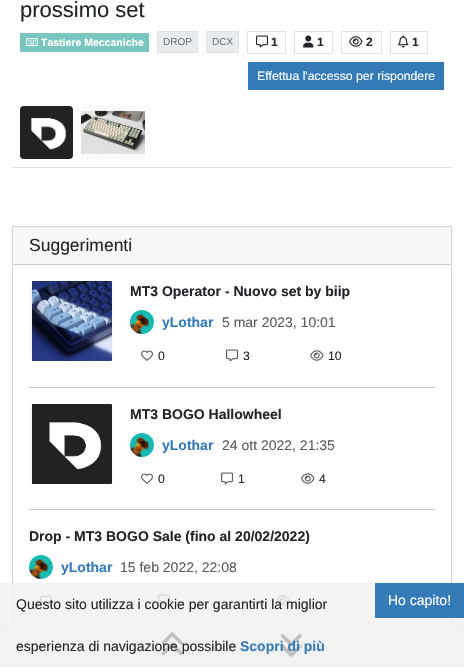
void draw(SkCanvas* canvas) {
	SkPaint fill;
	fill.setAntiAlias(true);
	auto makeFont = [&](const char* family, int weight, float size, bool italic = false) {
		SkFontStyle style(weight, SkFontStyle::kNormal_Width,
			italic ? SkFontStyle::kItalic_Slant : SkFontStyle::kUpright_Slant);
		SkFont result(fontMgr->matchFamilyStyle(family, style), size);
		result.setSubpixel(true);
		return result;
	};
	auto text = [&](const char* s, float x, float y, const SkFont& font) {
		canvas->drawString(s, x, y, font, fill);
	};
	auto box = [&](float l, float t, float r, float b) {
		canvas->drawRect(SkRect::MakeLTRB(l, t, r, b), fill);
	};
	auto roundBox = [&](float l, float t, float r, float b, float radius) {
		canvas->drawRoundRect(SkRect::MakeLTRB(l, t, r, b), radius, radius, fill);
	};
	auto picture = [&](const char* path, float l, float t, float r, float b) {
		auto image = SkImages::DeferredFromEncodedData(SkData::MakeFromFileName(path));
		canvas->drawImageRect(image, SkRect::MakeLTRB(l, t, r, b), SkSamplingOptions());
	};
	canvas->clear(0xFFFFFFFF);
	fill.setColor(0xFFDEE2E6);
	box(12, 167, 452, 168);
	fill.setColor(0xFF78C6BF);
	box(20, 33, 149, 52);
	picture("image0.png", 26, 38, 38, 46);
	fill.setColor(0xFFE9ECEF);
	canvas->drawRect(SkRect::MakeLTRB(157.5f, 31.5f, 197.5f, 52.5f), fill);
	fill.setStyle(SkPaint::kStroke_Style);
	fill.setStrokeWidth(1);
	fill.setColor(0xFFDEE2E6);
	canvas->drawRect(SkRect::MakeLTRB(157.5f, 31.5f, 197.5f, 52.5f), fill);
	fill.setStyle(SkPaint::kFill_Style);
	fill.setColor(0xFFE9ECEF);
	canvas->drawRect(SkRect::MakeLTRB(206.5f, 31.5f, 238.5f, 52.5f), fill);
	fill.setStyle(SkPaint::kStroke_Style);
	fill.setColor(0xFFDEE2E6);
	canvas->drawRect(SkRect::MakeLTRB(206.5f, 31.5f, 238.5f, 52.5f), fill);
	canvas->drawRect(SkRect::MakeLTRB(247.5f, 31.5f, 285.5f, 53.5f), fill);
	picture("image1.png", 256, 35, 268, 48);
	canvas->drawRect(SkRect::MakeLTRB(294.5f, 31.5f, 332.5f, 53.5f), fill);
	picture("image2.png", 303, 35, 314, 48);
	canvas->drawRect(SkRect::MakeLTRB(341.5f, 31.5f, 381.5f, 53.5f), fill);
	picture("image3.png", 349, 36, 363, 47);
	canvas->drawRect(SkRect::MakeLTRB(390.5f, 31.5f, 427.5f, 53.5f), fill);
	picture("image4.png", 398, 35, 409, 48);
	fill.setStyle(SkPaint::kFill_Style);
	fill.setColor(0xFF337AB7);
	box(248, 62, 444, 90);
	picture("image5.png", 20, 106, 73, 159);
	fill.setColor(0xFFF8F9FA);
	roundBox(81, 106, 145, 159, 4);
	picture("image6.png", 81, 109, 145, 156);
	fill.setStyle(SkPaint::kStroke_Style);
	fill.setColor(0xFFD2D2D2);
	canvas->drawRect(SkRect::MakeLTRB(12.5f, 226.5f, 451.5f, 647.5f), fill);
	fill.setStyle(SkPaint::kFill_Style);
	fill.setColor(0xFFF8F9FA);
	canvas->drawRect(SkRect::MakeLTRB(0.5f, 624.5f, 463.5f, 666.5f), fill);
	fill.setStyle(SkPaint::kStroke_Style);
	fill.setColor(0xFFDEE2E6);
	canvas->drawRect(SkRect::MakeLTRB(0.5f, 624.5f, 463.5f, 666.5f), fill);
	picture("image7.png", 161, 632, 183, 655);
	picture("image8.png", 280, 634, 302, 657);
	fill.setStyle(SkPaint::kFill_Style);
	fill.setColor(0xFFF8F8F9);
	box(13, 227, 451, 264);
	fill.setColor(0xFFCCCCCD);
	box(13, 264, 451, 265);
	fill.setColor(0xFFF8F9FA);
	roundBox(29, 281, 114, 361, 4);
	picture("image9.png", 32, 281, 112, 361);
	picture("image10.png", 130, 310, 154, 334);
	picture("image11.png", 141, 350, 153, 361);
	picture("image12.png", 226, 349, 238, 362);
	picture("image13.png", 310, 350, 324, 361);
	fill.setColor(0xFFC8C9CA);
	box(29, 387, 435, 388);
	fill.setColor(0xFFF8F9FA);
	roundBox(29, 404, 114, 484, 4);
	picture("image14.png", 32, 404, 112, 484);
	picture("image10.png", 130, 433, 154, 457);
	picture("image11.png", 141, 473, 153, 484);
	picture("image12.png", 221, 472, 233, 485);
	picture("image13.png", 301, 473, 315, 484);
	fill.setColor(0xFFC8C9CA);
	box(29, 509, 435, 510);
	picture("image15.png", 29, 555, 53, 579);
	picture("image11.png", 40, 595, 52, 606);
	picture("image12.png", 158, 594, 170, 607);
	picture("image13.png", 276, 595, 290, 606);
	fill.setColor(0xCCF0F0F0);
	box(0, 583, 464, 667);
	fill.setColor(0xFF337AB7);
	box(375, 583, 464, 618);
	auto font1 = makeFont("Liberation Sans", 400, 22);
	fill.setColor(0xFF212529);
	text("prossimo set", 20, 17, font1);
	auto font2 = makeFont("Liberation Sans", 700, 10.5f);
	fill.setColor(0xFFFFFFFF);
	text("Tastiere Meccaniche", 41, 46, font2);
	auto font3 = makeFont("Liberation Sans", 400, 10);
	fill.setColor(0xFF6C757D);
	text("DROP", 163, 45, font3);
	text("DCX", 212, 45, font3);
	auto font4 = makeFont("Liberation Sans", 700, 12);
	fill.setColor(0xFF212529);
	text("1", 271, 46, font4);
	text("1", 317, 46, font4);
	text("2", 366, 46, font4);
	text("1", 412, 46, font4);
	auto font5 = makeFont("Liberation Sans", 400, 12.25f);
	fill.setColor(0xFFFFFFFF);
	text("Effettua l'accesso per rispondere", 257, 80, font5);
	auto font6 = makeFont("Liberation Sans", 400, 17.5f);
	fill.setColor(0xFF212529);
	text("Suggerimenti", 29, 251, font6);
	auto font7 = makeFont("Liberation Sans", 700, 14);
	text("MT3 Operator - Nuovo set by biip", 130, 296, font7);
	fill.setColor(0xFF337AB7);
	text("yLothar", 162, 327, font7);
	auto font8 = makeFont("Liberation Sans", 400, 14);
	fill.setColor(0xFF595C5F);
	text("5 mar 2023, 10:01", 222, 327, font8);
	fill.setColor(0xFF212529);
	text("0", 158, 360, font5);
	text("3", 243, 360, font5);
	text("10", 328, 360, font5);
	text("MT3 BOGO Hallowheel", 130, 419, font7);
	fill.setColor(0xFF337AB7);
	text("yLothar", 162, 450, font7);
	fill.setColor(0xFF595C5F);
	text("24 ott 2022, 21:35", 222, 450, font8);
	fill.setColor(0xFF212529);
	text("0", 158, 483, font5);
	text("1", 238, 483, font5);
	text("4", 319, 483, font5);
	text("Drop - MT3 BOGO Sale (fino al 20/02/2022)", 29, 541, font7);
	fill.setColor(0xFF337AB7);
	text("yLothar", 61, 572, font7);
	fill.setColor(0xFF595C5F);
	text("15 feb 2022, 22:08", 120, 572, font8);
	fill.setColor(0xFF212529);
	text("Questo sito utilizza i cookie per garantirti la miglior", 16, 609, font8);
	fill.setColor(0xFFFFFFFF);
	text("Ho capito!", 388, 605, font8);
	fill.setColor(0xFF212529);
	text("esperienza di navigazione possibile", 16, 651, font8);
	fill.setColor(0xFF337AB7);
	text("Scopri di più", 240, 651, font7);
}
